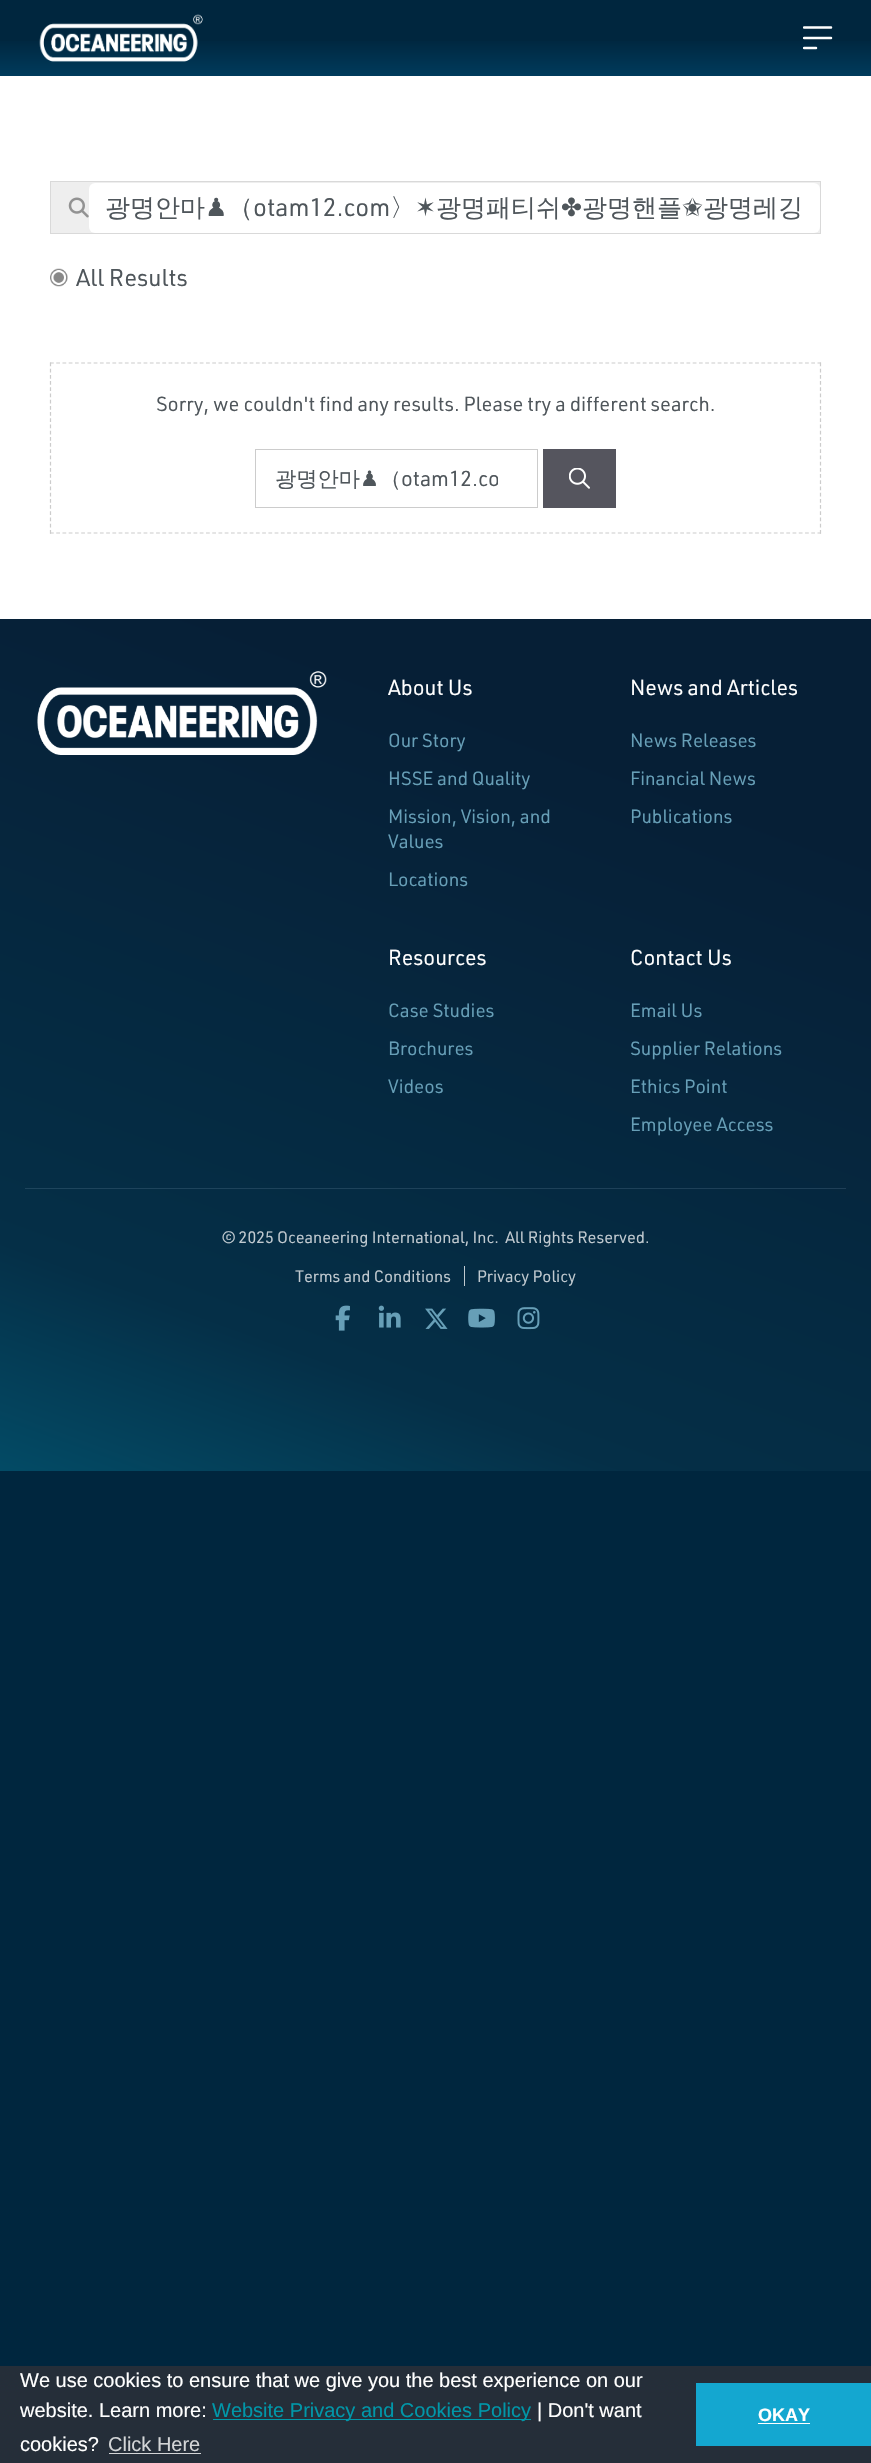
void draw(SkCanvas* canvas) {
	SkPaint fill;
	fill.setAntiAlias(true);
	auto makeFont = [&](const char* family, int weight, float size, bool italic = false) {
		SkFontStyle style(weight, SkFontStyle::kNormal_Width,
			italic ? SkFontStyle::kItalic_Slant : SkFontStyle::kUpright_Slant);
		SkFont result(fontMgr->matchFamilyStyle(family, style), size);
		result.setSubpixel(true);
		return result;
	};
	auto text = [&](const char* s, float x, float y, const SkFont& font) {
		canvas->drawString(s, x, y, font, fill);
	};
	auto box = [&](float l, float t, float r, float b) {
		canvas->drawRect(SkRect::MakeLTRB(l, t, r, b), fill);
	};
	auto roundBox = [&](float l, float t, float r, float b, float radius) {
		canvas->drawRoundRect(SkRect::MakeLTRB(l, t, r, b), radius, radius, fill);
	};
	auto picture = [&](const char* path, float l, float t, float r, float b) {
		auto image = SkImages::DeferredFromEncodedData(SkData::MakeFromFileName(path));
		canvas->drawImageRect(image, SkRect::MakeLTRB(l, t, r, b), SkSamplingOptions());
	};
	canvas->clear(0xFF00263E);
	{
		const SkColor colors[] = {0xFF00263E, 0xFF003B5C, 0xFF017093};
		const float stops[] = {0.5f, 1, 1};
		const SkPoint ends[] = {{436, 0}, {436, 76}};
		fill.setShader(SkGradientShader::MakeLinear(ends, colors, stops, 3, SkTileMode::kClamp));
		fill.setAlpha(255);
	}
	box(0, 41, 871, 76);
	picture("image0.png", 39, 14, 203, 62);
	canvas->save();
	canvas->clipRect(SkRect::MakeLTRB(803, 26, 833, 50));
	fill.setStyle(SkPaint::kStroke_Style);
	fill.setStrokeWidth(2.5f);
	fill.setStrokeCap(SkPaint::kRound_Cap);
	fill.setStrokeJoin(SkPaint::kRound_Join);
	fill.setShader(nullptr);
	fill.setColor(0xFFFFFFFF);
	canvas->drawPath(SkPathBuilder().moveTo(804, 27.5f).lineTo(831, 27.5f).moveTo(804, 38).lineTo(831, 38).moveTo(804, 48).lineTo(816, 48).detach(), fill);
	canvas->restore();
	fill.setStyle(SkPaint::kFill_Style);
	box(0, 76, 871, 619);
	fill.setColor(0xFFEEEEEE);
	canvas->drawRect(SkRect::MakeLTRB(50.5f, 181.5f, 820.5f, 233.5f), fill);
	fill.setStyle(SkPaint::kStroke_Style);
	fill.setStrokeWidth(1);
	fill.setStrokeCap(SkPaint::kButt_Cap);
	fill.setStrokeJoin(SkPaint::kMiter_Join);
	fill.setColor(0xFFD9D9D9);
	canvas->drawRect(SkRect::MakeLTRB(50.5f, 181.5f, 820.5f, 233.5f), fill);
	picture("image1.png", 68, 197, 89, 218);
	fill.setStyle(SkPaint::kFill_Style);
	fill.setColor(0xFFFFFFFF);
	roundBox(89, 183, 820, 233, 6);
	picture("image2.png", 50, 268, 68, 287);
	fill.setStyle(SkPaint::kStroke_Style);
	fill.setStrokeWidth(1.2f);
	fill.setColor(0xFFCCCCCC);
	fill.setPathEffect(SkDashPathEffect::Make({{3.75f, 2.49f}}, 0));
	canvas->drawPath(SkPathBuilder().moveTo(50, 363).lineTo(821, 363).detach(), fill);
	fill.setPathEffect(nullptr);
	fill.setPathEffect(SkDashPathEffect::Make({{3.75f, 2.45f}}, 0));
	canvas->drawPath(SkPathBuilder().moveTo(820.5f, 362.5f).lineTo(820.5f, 534).detach(), fill);
	fill.setPathEffect(nullptr);
	fill.setPathEffect(SkDashPathEffect::Make({{3.75f, 2.49f}}, 0));
	canvas->drawPath(SkPathBuilder().moveTo(50, 533).lineTo(821, 533).detach(), fill);
	fill.setPathEffect(nullptr);
	fill.setPathEffect(SkDashPathEffect::Make({{3.75f, 2.45f}}, 0));
	canvas->drawPath(SkPathBuilder().moveTo(50.5f, 362.5f).lineTo(50.5f, 534).detach(), fill);
	fill.setPathEffect(nullptr);
	fill.setStrokeWidth(1);
	canvas->drawRect(SkRect::MakeLTRB(255.5f, 449.5f, 537.5f, 507.5f), fill);
	fill.setStyle(SkPaint::kFill_Style);
	fill.setColor(0xFF55555E);
	box(543, 449, 616, 508);
	picture("image3.png", 569, 468, 590, 489);
	{
		const SkColor colors[] = {0xFF061F36, 0xFF052F47, 0xFF025975};
		const float stops[] = {0.18f, 0.73f, 1};
		const SkPoint ends[] = {{624, 529}, {210, 1665}};
		fill.setShader(SkGradientShader::MakeLinear(ends, colors, stops, 3, SkTileMode::kClamp));
		fill.setAlpha(255);
	}
	box(0, 619, 871, 1471);
	{
		const SkColor colors[] = {0xFF1F3951, 0xFF1E465E, 0xFF1C6883};
		const float stops[] = {0.18f, 0.73f, 1};
		const SkPoint ends[] = {{624, 529}, {210, 1665}};
		fill.setShader(SkGradientShader::MakeLinear(ends, colors, stops, 3, SkTileMode::kClamp));
		fill.setAlpha(255);
	}
	box(25, 1188, 846, 1189);
	picture("image4.png", 37, 671, 327, 755);
	fill.setShader(nullptr);
	fill.setColor(0xFFC1CAD0);
	box(464, 1266, 465, 1286);
	picture("image5.png", 335, 1305, 350, 1331);
	picture("image6.png", 378, 1305, 401, 1328);
	picture("image7.png", 425, 1308, 448, 1329);
	picture("image8.png", 468, 1308, 495, 1328);
	picture("image9.png", 517, 1307, 540, 1330);
	fill.setColor(0xFF252E39);
	box(0, 2366, 871, 2463);
	fill.setColor(0xFF0097A9);
	box(213, 2419, 531, 2420);
	fill.setColor(0xFFD3D5D7);
	box(109, 2453, 201, 2454);
	fill.setColor(0xFF14A7D0);
	box(696, 2383, 871, 2446);
	fill.setColor(0xFFFFFFFF);
	box(758, 2423, 810, 2424);
	auto font1 = makeFont("WenQuanYi Zen Hei", 500, 25);
	fill.setColor(0xFF4F565B);
	text("광명안마", 105, 216, font1);
	auto font2 = makeFont("DejaVu Sans", 400, 25);
	text("♟", 205, 216, font2);
	text("（", 228, 216, font1);
	auto font3 = makeFont("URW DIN", 400, 25);
	text("otam12.com", 253, 216, font3);
	text("〉", 390, 216, font1);
	text("✶", 415, 216, font2);
	text("광명패티쉬", 436, 216, font1);
	text("✤", 561, 216, font2);
	text("광명핸플", 582, 216, font1);
	text("✬", 682, 216, font2);
	text("광명레깅", 703, 216, font1);
	auto font4 = makeFont("URW DIN", 400, 23.75f);
	text("All Results", 76, 286, font4);
	auto font5 = makeFont("URW DIN", 400, 20);
	text("Sorry, we couldn't find any results. Please try a different search.", 156, 411, font5);
	auto font6 = makeFont("WenQuanYi Zen Hei", 500, 21.25f);
	text("광명안마", 275, 486, font6);
	auto font7 = makeFont("DejaVu Sans", 400, 21.25f);
	text("♟", 360, 486, font7);
	text("（", 380, 486, font6);
	canvas->save();
	canvas->clipRect(SkRect::MakeLTRB(275, 463, 498, 494));
	auto font8 = makeFont("URW DIN", 400, 21.25f);
	text("otam12.co", 401, 486, font8);
	canvas->restore();
	fill.setColor(0xFFFFFFFF);
	text("About Us", 388, 695, font8);
	auto font9 = makeFont("URW DIN", 400, 18.75f);
	fill.setColor(0xFF679FB7);
	text("Our Story", 388, 747, font9);
	text("HSSE and Quality", 388, 785, font9);
	text("Mission, Vision, and", 388, 823, font9);
	text("Values", 388, 848, font9);
	text("Locations", 388, 886, font9);
	fill.setColor(0xFFFFFFFF);
	text("News and Articles", 630, 695, font8);
	fill.setColor(0xFF679FB7);
	text("News Releases", 630, 747, font9);
	text("Financial News", 630, 785, font9);
	text("Publications", 630, 823, font9);
	fill.setColor(0xFFFFFFFF);
	text("Resources", 388, 965, font8);
	fill.setColor(0xFF679FB7);
	text("Case Studies", 388, 1017, font9);
	text("Brochures", 388, 1055, font9);
	text("Videos", 388, 1093, font9);
	fill.setColor(0xFFFFFFFF);
	text("Contact Us", 630, 965, font8);
	fill.setColor(0xFF679FB7);
	text("Email Us", 630, 1017, font9);
	text("Supplier Relations", 630, 1055, font9);
	text("Ethics Point", 630, 1093, font9);
	text("Employee Access", 630, 1131, font9);
	auto font10 = makeFont("URW DIN", 400, 16.25f);
	fill.setColor(0xFFC1CAD0);
	text("© 2025 Oceaneering International, Inc.  All Rights Reserved.", 222, 1243, font10);
	text("Terms and Conditions", 295, 1282, font10);
	text("Privacy Policy", 477, 1282, font10);
	auto font11 = makeFont("Liberation Sans", 400, 20);
	fill.setColor(0xFFFFFFFF);
	text("We use cookies to ensure that we give you the best experience on our", 20, 2387, font11);
	text("website. Learn more:", 20, 2417, font11);
	fill.setColor(0xFF0097A9);
	text("Website Privacy and Cookies Policy", 212, 2417, font11);
	fill.setColor(0xFFFFFFFF);
	text("| Don't want", 537, 2417, font11);
	text("cookies?", 20, 2451, font11);
	fill.setColor(0xFFD3D5D7);
	text("Click Here", 108, 2451, font11);
	auto font12 = makeFont("Liberation Sans", 700, 18);
	fill.setColor(0xFFFFFFFF);
	text("OKAY", 758, 2421, font12);
}
